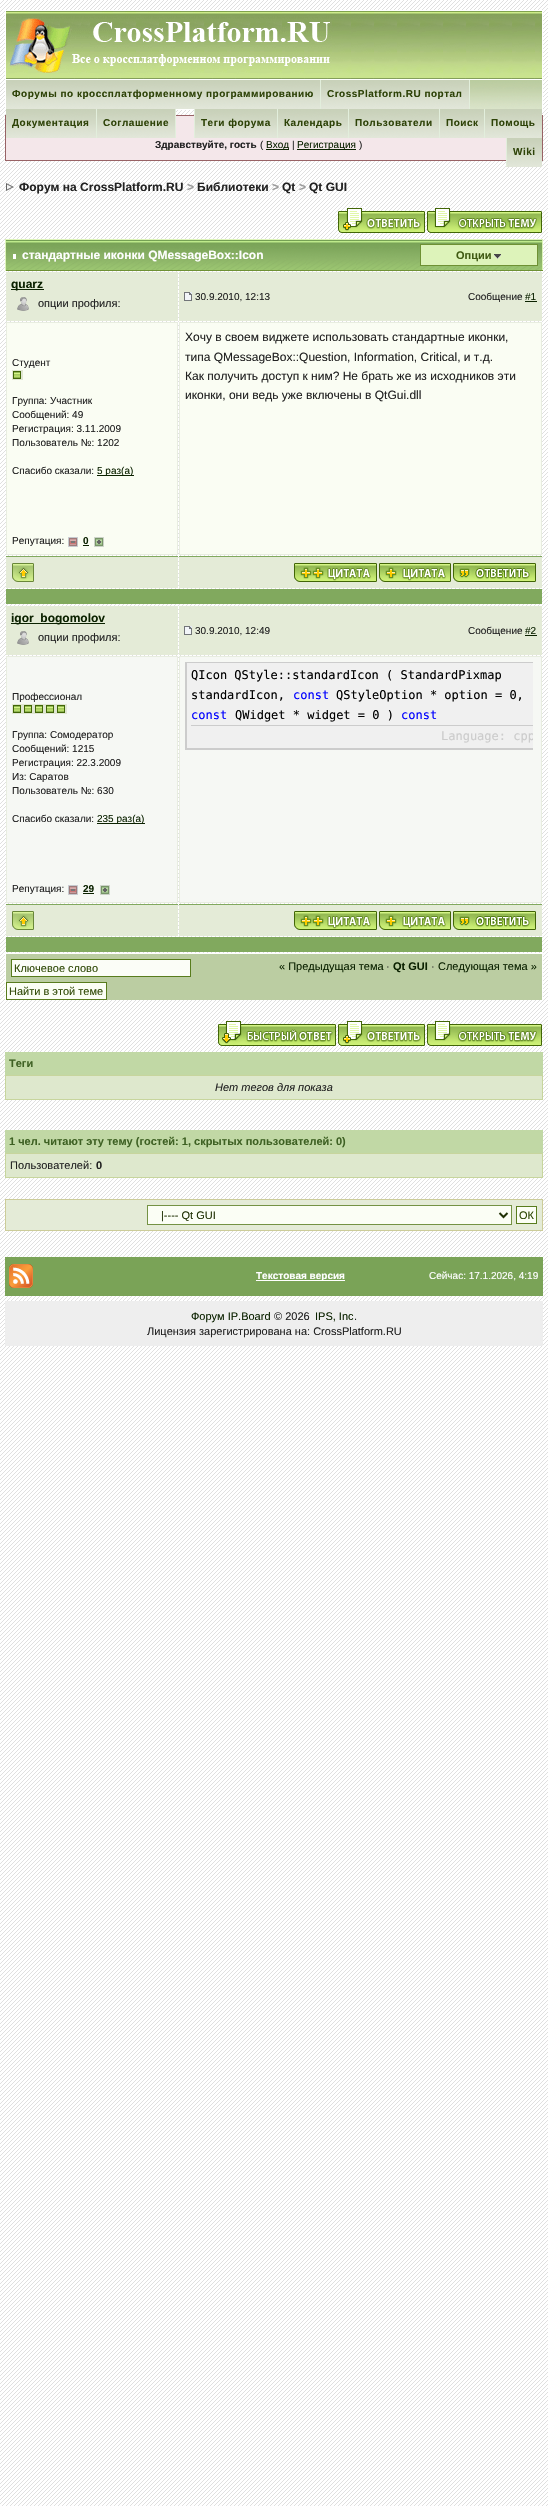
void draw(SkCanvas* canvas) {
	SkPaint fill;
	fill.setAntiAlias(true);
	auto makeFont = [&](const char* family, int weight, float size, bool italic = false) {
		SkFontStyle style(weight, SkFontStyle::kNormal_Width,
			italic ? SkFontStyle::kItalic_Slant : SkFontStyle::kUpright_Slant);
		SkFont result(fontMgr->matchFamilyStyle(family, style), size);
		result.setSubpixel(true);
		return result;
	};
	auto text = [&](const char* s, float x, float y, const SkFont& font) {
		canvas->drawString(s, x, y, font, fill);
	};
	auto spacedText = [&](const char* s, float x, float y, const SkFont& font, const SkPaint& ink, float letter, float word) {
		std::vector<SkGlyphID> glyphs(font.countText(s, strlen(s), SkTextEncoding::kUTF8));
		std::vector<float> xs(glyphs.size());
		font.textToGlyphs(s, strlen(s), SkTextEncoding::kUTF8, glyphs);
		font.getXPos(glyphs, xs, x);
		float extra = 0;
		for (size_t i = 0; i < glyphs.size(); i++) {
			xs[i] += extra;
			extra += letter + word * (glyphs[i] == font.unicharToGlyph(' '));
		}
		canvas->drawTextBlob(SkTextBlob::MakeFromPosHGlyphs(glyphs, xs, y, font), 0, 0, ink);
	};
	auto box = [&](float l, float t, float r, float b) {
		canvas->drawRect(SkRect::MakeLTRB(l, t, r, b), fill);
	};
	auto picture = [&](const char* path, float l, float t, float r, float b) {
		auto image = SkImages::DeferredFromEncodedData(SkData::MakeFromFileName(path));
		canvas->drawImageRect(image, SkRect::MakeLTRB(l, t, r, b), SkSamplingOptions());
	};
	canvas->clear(0xFFFFFFFF);
	picture("image0.png", 0, 0, 548, 2506);
	picture("image1.png", 6, 11, 542, 79);
	fill.setStyle(SkPaint::kStroke_Style);
	fill.setStrokeWidth(1);
	fill.setColor(0xFFFFFFFF);
	canvas->drawRect(SkRect::MakeLTRB(5.5f, 10.5f, 542.5f, 79.5f), fill);
	picture("image2.png", 8, 11, 332, 73);
	picture("image3.png", 470, 80, 542, 109);
	fill.setStyle(SkPaint::kFill_Style);
	box(542, 80, 543, 110);
	box(176, 109, 543, 110);
	box(5, 80, 6, 110);
	picture("image4.png", 6, 80, 320, 109);
	fill.setColor(0xFFE2EEDC);
	box(320, 80, 321, 109);
	picture("image5.png", 321, 80, 469, 109);
	box(469, 80, 470, 109);
	fill.setColor(0xFFF4E7EA);
	box(6, 116, 506, 160);
	fill.setStyle(SkPaint::kStroke_Style);
	fill.setColor(0xFF986265);
	canvas->drawRect(SkRect::MakeLTRB(5.5f, 115.5f, 542.5f, 160.5f), fill);
	picture("image6.png", 6, 109, 96, 138);
	fill.setStyle(SkPaint::kFill_Style);
	fill.setColor(0xFFE2EEDC);
	box(96, 109, 97, 138);
	picture("image7.png", 97, 109, 175, 138);
	box(175, 109, 176, 138);
	picture("image8.png", 195, 109, 277, 138);
	box(194, 109, 195, 138);
	picture("image9.png", 278, 109, 348, 138);
	box(277, 109, 278, 138);
	picture("image6.png", 349, 109, 439, 138);
	box(348, 109, 349, 138);
	picture("image10.png", 440, 109, 484, 138);
	box(439, 109, 440, 138);
	picture("image11.png", 485, 109, 542, 138);
	box(484, 109, 485, 138);
	picture("image12.png", 507, 138, 542, 167);
	box(506, 138, 507, 167);
	fill.setColor(0xFF0B2200);
	box(266, 149, 289, 150);
	box(297, 149, 356, 150);
	picture("image13.png", 6, 183, 14, 191);
	picture("image14.png", 337, 207, 425, 233);
	picture("image15.png", 427, 208, 542, 233);
	picture("image16.png", 6, 240, 542, 270);
	fill.setColor(0xFFDDF3BA);
	box(5, 239, 543, 240);
	box(542, 239, 543, 271);
	fill.setColor(0xFF6E9134);
	box(5, 270, 543, 271);
	fill.setColor(0xFFDDF3BA);
	box(5, 239, 6, 271);
	fill.setColor(0xFFFFFFFF);
	box(13, 254, 16, 259);
	fill.setColor(0xFFDDF3BA);
	canvas->drawRect(SkRect::MakeLTRB(420.5f, 244.5f, 537.5f, 265.5f), fill);
	fill.setStyle(SkPaint::kStroke_Style);
	fill.setColor(0xFF6E9134);
	canvas->drawRect(SkRect::MakeLTRB(420.5f, 244.5f, 537.5f, 265.5f), fill);
	picture("image17.png", 494, 254, 501, 259);
	fill.setStyle(SkPaint::kFill_Style);
	fill.setColor(0xFFE4EBD7);
	box(6, 272, 178, 321);
	fill.setColor(0xFF0B2200);
	box(11, 289, 44, 290);
	picture("image18.png", 17, 297, 29, 311);
	fill.setColor(0xFFE4EBD7);
	box(179, 272, 542, 321);
	picture("image19.png", 184, 292, 192, 301);
	fill.setColor(0xFF0B2200);
	box(525, 301, 537, 302);
	fill.setColor(0xFFFAFDF3);
	canvas->drawRect(SkRect::MakeLTRB(6.5f, 322.5f, 177.5f, 554.5f), fill);
	fill.setStyle(SkPaint::kStroke_Style);
	fill.setColor(0xFFE8EDE0);
	canvas->drawRect(SkRect::MakeLTRB(6.5f, 322.5f, 177.5f, 554.5f), fill);
	picture("image20.png", 12, 370, 23, 380);
	fill.setStyle(SkPaint::kFill_Style);
	fill.setColor(0xFF0B2200);
	box(97, 475, 134, 476);
	picture("image21.png", 68, 537, 78, 547);
	box(83, 545, 89, 546);
	picture("image22.png", 94, 537, 104, 547);
	fill.setColor(0xFFFAFDF3);
	canvas->drawRect(SkRect::MakeLTRB(179.5f, 322.5f, 541.5f, 554.5f), fill);
	fill.setStyle(SkPaint::kStroke_Style);
	fill.setColor(0xFFE8EDE0);
	canvas->drawRect(SkRect::MakeLTRB(179.5f, 322.5f, 541.5f, 554.5f), fill);
	fill.setStyle(SkPaint::kFill_Style);
	fill.setColor(0xFFE4EBD7);
	box(6, 557, 178, 588);
	fill.setColor(0xFF81A95E);
	box(6, 556, 178, 557);
	picture("image23.png", 12, 563, 34, 582);
	fill.setColor(0xFFE4EBD7);
	box(179, 557, 542, 588);
	fill.setColor(0xFF81A95E);
	box(179, 556, 542, 557);
	picture("image24.png", 294, 563, 377, 582);
	picture("image25.png", 379, 563, 451, 582);
	picture("image26.png", 453, 563, 536, 582);
	box(6, 589, 542, 604);
	fill.setColor(0xFFE4EBD7);
	box(6, 606, 178, 655);
	fill.setColor(0xFF0B2200);
	box(11, 623, 105, 624);
	picture("image18.png", 17, 631, 29, 645);
	fill.setColor(0xFFE4EBD7);
	box(179, 606, 542, 655);
	picture("image19.png", 184, 626, 192, 635);
	fill.setColor(0xFF0B2200);
	box(525, 635, 537, 636);
	fill.setColor(0xFFF6F8F4);
	canvas->drawRect(SkRect::MakeLTRB(6.5f, 656.5f, 177.5f, 902.5f), fill);
	fill.setStyle(SkPaint::kStroke_Style);
	fill.setColor(0xFFE8EDE0);
	canvas->drawRect(SkRect::MakeLTRB(6.5f, 656.5f, 177.5f, 902.5f), fill);
	picture("image20.png", 12, 704, 23, 714);
	picture("image20.png", 23, 704, 34, 714);
	picture("image20.png", 34, 704, 45, 714);
	picture("image20.png", 45, 704, 56, 714);
	picture("image20.png", 56, 704, 67, 714);
	fill.setStyle(SkPaint::kFill_Style);
	fill.setColor(0xFF0B2200);
	box(97, 823, 145, 824);
	picture("image21.png", 68, 885, 78, 895);
	box(83, 893, 94, 894);
	picture("image22.png", 100, 885, 110, 895);
	fill.setColor(0xFFF6F8F4);
	canvas->drawRect(SkRect::MakeLTRB(179.5f, 656.5f, 541.5f, 902.5f), fill);
	fill.setStyle(SkPaint::kStroke_Style);
	fill.setColor(0xFFE8EDE0);
	canvas->drawRect(SkRect::MakeLTRB(179.5f, 656.5f, 541.5f, 902.5f), fill);
	fill.setStyle(SkPaint::kFill_Style);
	fill.setColor(0xFFF0F0F0);
	box(187, 663, 533, 748);
	fill.setColor(0xFFCCCCCC);
	box(185, 749, 533, 750);
	box(185, 662, 186, 750);
	canvas->save();
	canvas->clipRect(SkRect::MakeLTRB(186, 662, 533, 749));
	fill.setStyle(SkPaint::kStroke_Style);
	canvas->drawRect(SkRect::MakeLTRB(186.5f, 662.5f, 539.5f, 748.5f), fill);
	canvas->restore();
	fill.setStyle(SkPaint::kFill_Style);
	box(191, 725, 533, 726);
	fill.setColor(0xFFE4EBD7);
	box(6, 905, 178, 936);
	fill.setColor(0xFF81A95E);
	box(6, 904, 178, 905);
	picture("image23.png", 12, 911, 34, 930);
	fill.setColor(0xFFE4EBD7);
	box(179, 905, 542, 936);
	fill.setColor(0xFF81A95E);
	box(179, 904, 542, 905);
	picture("image24.png", 294, 911, 377, 930);
	picture("image25.png", 379, 911, 451, 930);
	picture("image26.png", 453, 911, 536, 930);
	box(6, 937, 542, 952);
	fill.setColor(0xFFBBCDA2);
	box(6, 954, 542, 1000);
	fill.setColor(0xFFFFFFFF);
	box(5, 953, 543, 954);
	box(542, 953, 543, 1000);
	box(5, 953, 6, 1000);
	fill.setColor(0xFFFBFDF7);
	canvas->drawRect(SkRect::MakeLTRB(11.5f, 959.5f, 190.5f, 976.5f), fill);
	fill.setStyle(SkPaint::kStroke_Style);
	fill.setColor(0xFF587C1D);
	canvas->drawRect(SkRect::MakeLTRB(11.5f, 959.5f, 190.5f, 976.5f), fill);
	fill.setStyle(SkPaint::kFill_Style);
	fill.setColor(0xFFFBFEF5);
	canvas->drawRect(SkRect::MakeLTRB(6.5f, 982.5f, 106.5f, 999.5f), fill);
	fill.setStyle(SkPaint::kStroke_Style);
	fill.setColor(0xFF587C1D);
	canvas->drawRect(SkRect::MakeLTRB(6.5f, 982.5f, 106.5f, 999.5f), fill);
	picture("image27.png", 217, 1021, 336, 1046);
	picture("image28.png", 337, 1021, 425, 1046);
	picture("image29.png", 427, 1021, 542, 1046);
	fill.setStyle(SkPaint::kFill_Style);
	fill.setColor(0xFFC1D8A5);
	box(5, 1052, 543, 1075);
	fill.setColor(0xFFDEE8CD);
	canvas->drawRect(SkRect::MakeLTRB(5.5f, 1075.5f, 542.5f, 1099.5f), fill);
	fill.setStyle(SkPaint::kStroke_Style);
	fill.setColor(0xFFC7D59D);
	canvas->drawRect(SkRect::MakeLTRB(5.5f, 1075.5f, 542.5f, 1099.5f), fill);
	fill.setStyle(SkPaint::kFill_Style);
	fill.setColor(0xFFC1D8A5);
	box(5, 1130, 543, 1153);
	fill.setColor(0xFFDEE8CD);
	canvas->drawRect(SkRect::MakeLTRB(5.5f, 1153.5f, 542.5f, 1177.5f), fill);
	fill.setStyle(SkPaint::kStroke_Style);
	fill.setColor(0xFFC7D59D);
	canvas->drawRect(SkRect::MakeLTRB(5.5f, 1153.5f, 542.5f, 1177.5f), fill);
	fill.setStyle(SkPaint::kFill_Style);
	fill.setColor(0xFFE4EBD7);
	canvas->drawRect(SkRect::MakeLTRB(5.5f, 1199.5f, 542.5f, 1230.5f), fill);
	fill.setStyle(SkPaint::kStroke_Style);
	fill.setColor(0xFFCCCC99);
	canvas->drawRect(SkRect::MakeLTRB(5.5f, 1199.5f, 542.5f, 1230.5f), fill);
	fill.setStyle(SkPaint::kFill_Style);
	fill.setColor(0xFFFBFEF5);
	canvas->drawRect(SkRect::MakeLTRB(147.5f, 1205.5f, 511.5f, 1224.5f), fill);
	fill.setStyle(SkPaint::kStroke_Style);
	fill.setColor(0xFF749244);
	canvas->drawRect(SkRect::MakeLTRB(147.5f, 1205.5f, 511.5f, 1224.5f), fill);
	fill.setStrokeWidth(2);
	fill.setColor(0xFF203104);
	canvas->drawPath(SkPathBuilder().moveTo(499.5f, 1213).lineTo(503.5f, 1217).lineTo(507.5f, 1213).detach(), fill);
	fill.setStyle(SkPaint::kFill_Style);
	fill.setColor(0xFFFBFEF5);
	canvas->drawRect(SkRect::MakeLTRB(516.5f, 1206.5f, 536.5f, 1223.5f), fill);
	fill.setStyle(SkPaint::kStroke_Style);
	fill.setStrokeWidth(1);
	fill.setColor(0xFF587C1D);
	canvas->drawRect(SkRect::MakeLTRB(516.5f, 1206.5f, 536.5f, 1223.5f), fill);
	fill.setStyle(SkPaint::kFill_Style);
	fill.setColor(0xFF7AA357);
	box(5, 1257, 543, 1296);
	picture("image30.png", 9, 1264, 33, 1288);
	fill.setColor(0xFFFFFFFF);
	box(256, 1280, 345, 1281);
	fill.setColor(0xFFEEEEEE);
	box(5, 1301, 543, 1346);
	auto font1 = makeFont("Liberation Sans", 700, 10);
	fill.setColor(0xFF2E4308);
	spacedText("Форумы по кроссплатформенному программированию", 12, 97, font1, fill, 0.5f, 0);
	spacedText("CrossPlatform.RU портал", 327, 97, font1, fill, 0.5f, 0);
	spacedText("Документация", 12, 126, font1, fill, 0.5f, 0);
	spacedText("Соглашение", 103, 126, font1, fill, 0.5f, 0);
	spacedText("Теги форума", 201, 126, font1, fill, 0.5f, 0);
	spacedText("Календарь", 284, 126, font1, fill, 0.5f, 0);
	spacedText("Пользователи", 355, 126, font1, fill, 0.5f, 0);
	spacedText("Поиск", 446, 126, font1, fill, 0.5f, 0);
	spacedText("Помощь", 491, 126, font1, fill, 0.5f, 0);
	spacedText("Wiki", 513, 155, font1, fill, 0.5f, 0);
	fill.setColor(0xFF222222);
	text("Здравствуйте, гость", 155, 148, font1);
	auto font2 = makeFont("Liberation Sans", 400, 10);
	text("(", 260, 148, font2);
	fill.setColor(0xFF0B2200);
	text("Вход", 266, 148, font2);
	fill.setColor(0xFF222222);
	text("|", 292, 148, font2);
	fill.setColor(0xFF0B2200);
	text("Регистрация", 297, 148, font2);
	fill.setColor(0xFF222222);
	text(")", 359, 148, font2);
	auto font3 = makeFont("Liberation Sans", 700, 12);
	text("Форум на CrossPlatform.RU", 19, 191, font3);
	fill.setColor(0xFF999999);
	text(">", 187, 191, font3);
	fill.setColor(0xFF222222);
	text("Библиотеки", 197, 191, font3);
	fill.setColor(0xFF999999);
	text(">", 272, 191, font3);
	fill.setColor(0xFF222222);
	text("Qt", 282, 191, font3);
	fill.setColor(0xFF999999);
	text(">", 299, 191, font3);
	fill.setColor(0xFF222222);
	text("Qt GUI", 309, 191, font3);
	fill.setColor(0xFFFFFFFF);
	text("стандартные иконки QMessageBox::Icon", 22, 259, font3);
	auto font4 = makeFont("Liberation Sans", 700, 11);
	fill.setColor(0xFF405B13);
	text("Опции", 456, 259, font4);
	fill.setColor(0xFF0B2200);
	text("quarz", 11, 288, font3);
	auto font5 = makeFont("Liberation Sans", 400, 11);
	fill.setColor(0xFF222222);
	text("опции профиля:", 38, 307, font5);
	text("30.9.2010, 12:13", 195, 300, font2);
	text("Сообщение", 468, 300, font2);
	fill.setColor(0xFF0B2200);
	text("#1", 525, 300, font2);
	fill.setColor(0xFF222222);
	text("Студент", 12, 366, font2);
	text("Группа: Участник", 12, 404, font2);
	text("Сообщений: 49", 12, 418, font2);
	text("Регистрация: 3.11.2009", 12, 432, font2);
	text("Пользователь №: 1202", 12, 446, font2);
	text("Спасибо сказали:", 12, 474, font2);
	fill.setColor(0xFF0B2200);
	text("5 раз(а)", 97, 474, font2);
	fill.setColor(0xFF222222);
	text("Репутация:", 12, 544, font2);
	fill.setColor(0xFF0B2200);
	text("0", 83, 544, font1);
	auto font6 = makeFont("Liberation Sans", 400, 12);
	fill.setColor(0xFF222222);
	text("Хочу в своем виджете использовать стандартные иконки,", 185, 341, font6);
	text("типа QMessageBox::Question, Information, Critical, и т.д.", 185, 361, font6);
	text("Как получить доступ к ним? Не брать же из исходников эти", 185, 380, font6);
	text("иконки, они ведь уже включены в QtGui.dll", 185, 399, font6);
	fill.setColor(0xFF0B2200);
	text("igor_bogomolov", 11, 622, font3);
	fill.setColor(0xFF222222);
	text("опции профиля:", 38, 641, font5);
	text("30.9.2010, 12:49", 195, 634, font2);
	text("Сообщение", 468, 634, font2);
	fill.setColor(0xFF0B2200);
	text("#2", 525, 634, font2);
	fill.setColor(0xFF222222);
	text("Профессионал", 12, 700, font2);
	text("Группа: Сомодератор", 12, 738, font2);
	text("Сообщений: 1215", 12, 752, font2);
	text("Регистрация: 22.3.2009", 12, 766, font2);
	text("Из: Саратов", 12, 780, font2);
	text("Пользователь №: 630", 12, 794, font2);
	text("Спасибо сказали:", 12, 822, font2);
	fill.setColor(0xFF0B2200);
	text("235 раз(а)", 97, 822, font2);
	fill.setColor(0xFF222222);
	text("Репутация:", 12, 892, font2);
	fill.setColor(0xFF0B2200);
	text("29", 83, 892, font1);
	auto font7 = makeFont("DejaVu Sans Mono", 400, 12);
	fill.setColor(0xFF000000);
	text("QIcon QStyle::standardIcon ( StandardPixmap", 191, 679, font7);
	text("standardIcon,", 191, 699, font7);
	fill.setColor(0xFF0000FF);
	text("const", 293, 699, font7);
	fill.setColor(0xFF000000);
	text("QStyleOption * option = 0,", 336, 699, font7);
	fill.setColor(0xFF0000FF);
	text("const", 191, 719, font7);
	fill.setColor(0xFF000000);
	text("QWidget * widget = 0 )", 235, 719, font7);
	fill.setColor(0xFF0000FF);
	text("const", 401, 719, font7);
	canvas->save();
	canvas->clipRect(SkRect::MakeLTRB(186, 662, 533, 749));
	fill.setColor(0xFFCCCCCC);
	text("Language: cpp", 441, 740, font7);
	canvas->restore();
	fill.setColor(0xFF304A07);
	text("Ключевое слово", 14, 972, font5);
	text("Найти в этой теме", 9, 995, font5);
	fill.setColor(0xFF0B2200);
	text("« Предыдущая тема", 279, 970, font5);
	fill.setColor(0xFF222222);
	text("·", 386, 970, font5);
	fill.setColor(0xFF0B2200);
	text("Qt GUI", 393, 970, font4);
	fill.setColor(0xFF222222);
	text("·", 431, 970, font5);
	fill.setColor(0xFF0B2200);
	text("Следующая тема »", 438, 970, font5);
	fill.setColor(0xFF3E6123);
	text("Теги", 9, 1067, font4);
	auto font8 = makeFont("Liberation Sans", 400, 11, true);
	fill.setColor(0xFF222222);
	text("Нет тегов для показа", 215, 1091, font8);
	fill.setColor(0xFF3E6123);
	text("1 чел. читают эту тему (гостей: 1, скрытых пользователей: 0)", 9, 1145, font4);
	fill.setColor(0xFF222222);
	text("Пользователей:", 10, 1169, font5);
	text("0", 96, 1169, font4);
	fill.setColor(0xFF203104);
	text("|---- Qt GUI", 161, 1219, font5);
	fill.setColor(0xFF304A07);
	text("ОК", 519, 1219, font5);
	fill.setColor(0xFFFFFFFF);
	text("Текстовая версия", 256, 1279, font1);
	text("Сейчас: 17.1.2026, 4:19", 429, 1279, font2);
	fill.setColor(0xFF0B2200);
	text("Форум IP.Board", 191, 1320, font5);
	fill.setColor(0xFF222222);
	text("© 2026", 274, 1320, font5);
	fill.setColor(0xFF0B2200);
	text("IPS, Inc", 315, 1320, font5);
	fill.setColor(0xFF222222);
	text(".", 354, 1320, font5);
	text("Лицензия зарегистрирована на: CrossPlatform.RU", 147, 1335, font5);
}
